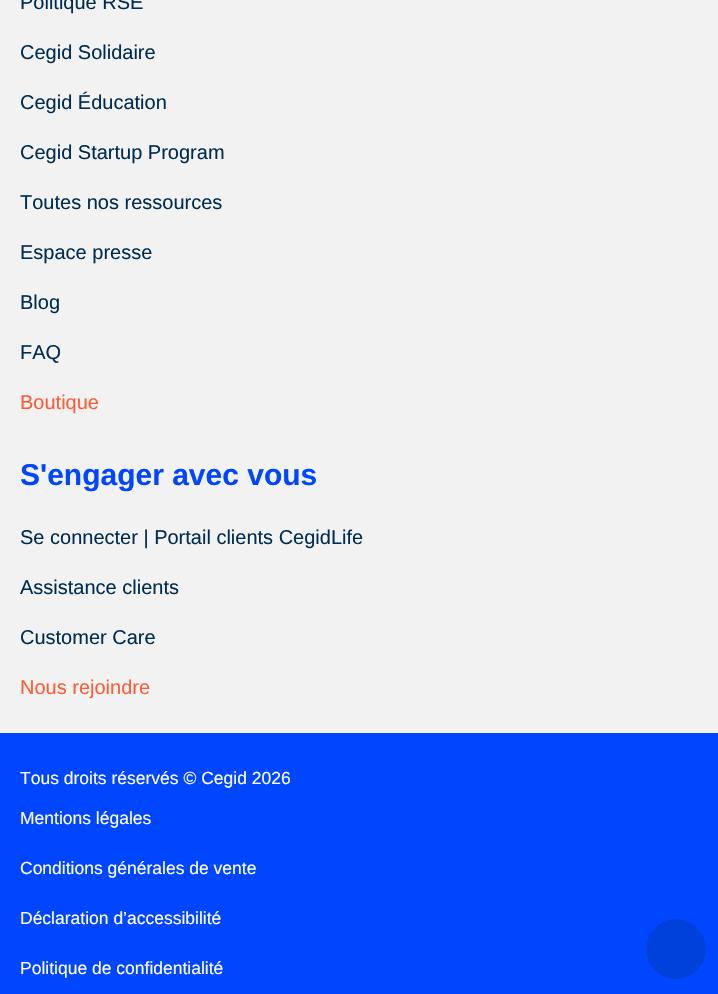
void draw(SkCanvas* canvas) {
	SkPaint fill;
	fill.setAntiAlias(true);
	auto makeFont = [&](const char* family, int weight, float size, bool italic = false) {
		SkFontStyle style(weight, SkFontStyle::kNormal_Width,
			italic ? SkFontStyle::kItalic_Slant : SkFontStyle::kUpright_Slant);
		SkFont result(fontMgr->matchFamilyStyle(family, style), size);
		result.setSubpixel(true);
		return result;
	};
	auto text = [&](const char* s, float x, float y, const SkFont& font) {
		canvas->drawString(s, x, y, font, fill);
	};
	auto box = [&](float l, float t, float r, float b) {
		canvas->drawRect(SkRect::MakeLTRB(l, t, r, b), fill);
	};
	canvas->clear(0xFF0046FE);
	fill.setColor(0xFFF2F2F2);
	box(0, 0, 718, 733);
	fill.setColor(0xFF0041DC);
	canvas->drawCircle(676, 949, 30, fill);
	auto font1 = makeFont("Liberation Sans", 400, 20);
	fill.setColor(0xFF002C52);
	text("Politique RSE", 20, 9, font1);
	text("Cegid Solidaire", 20, 59, font1);
	text("Cegid Éducation", 20, 109, font1);
	text("Cegid Startup Program", 20, 159, font1);
	text("Toutes nos ressources", 20, 209, font1);
	text("Espace presse", 20, 259, font1);
	text("Blog", 20, 309, font1);
	text("FAQ", 20, 359, font1);
	fill.setColor(0xFFFF5C35);
	text("Boutique", 20, 409, font1);
	auto font2 = makeFont("Liberation Sans", 700, 30);
	fill.setColor(0xFF0046FE);
	text("S'engager avec vous", 20, 485, font2);
	fill.setColor(0xFF002C52);
	text("Se connecter | Portail clients CegidLife", 20, 544, font1);
	text("Assistance clients", 20, 594, font1);
	text("Customer Care", 20, 644, font1);
	fill.setColor(0xFFFF5C35);
	text("Nous rejoindre", 20, 694, font1);
	auto font3 = makeFont("Liberation Sans", 400, 17.5f);
	fill.setColor(0xFFFFFFFF);
	text("Tous droits réservés © Cegid 2026", 20, 784, font3);
	text("Mentions légales", 20, 824, font3);
	text("Conditions générales de vente", 20, 874, font3);
	text("Déclaration d’accessibilité", 20, 924, font3);
	text("Politique de confidentialité", 20, 974, font3);
}
